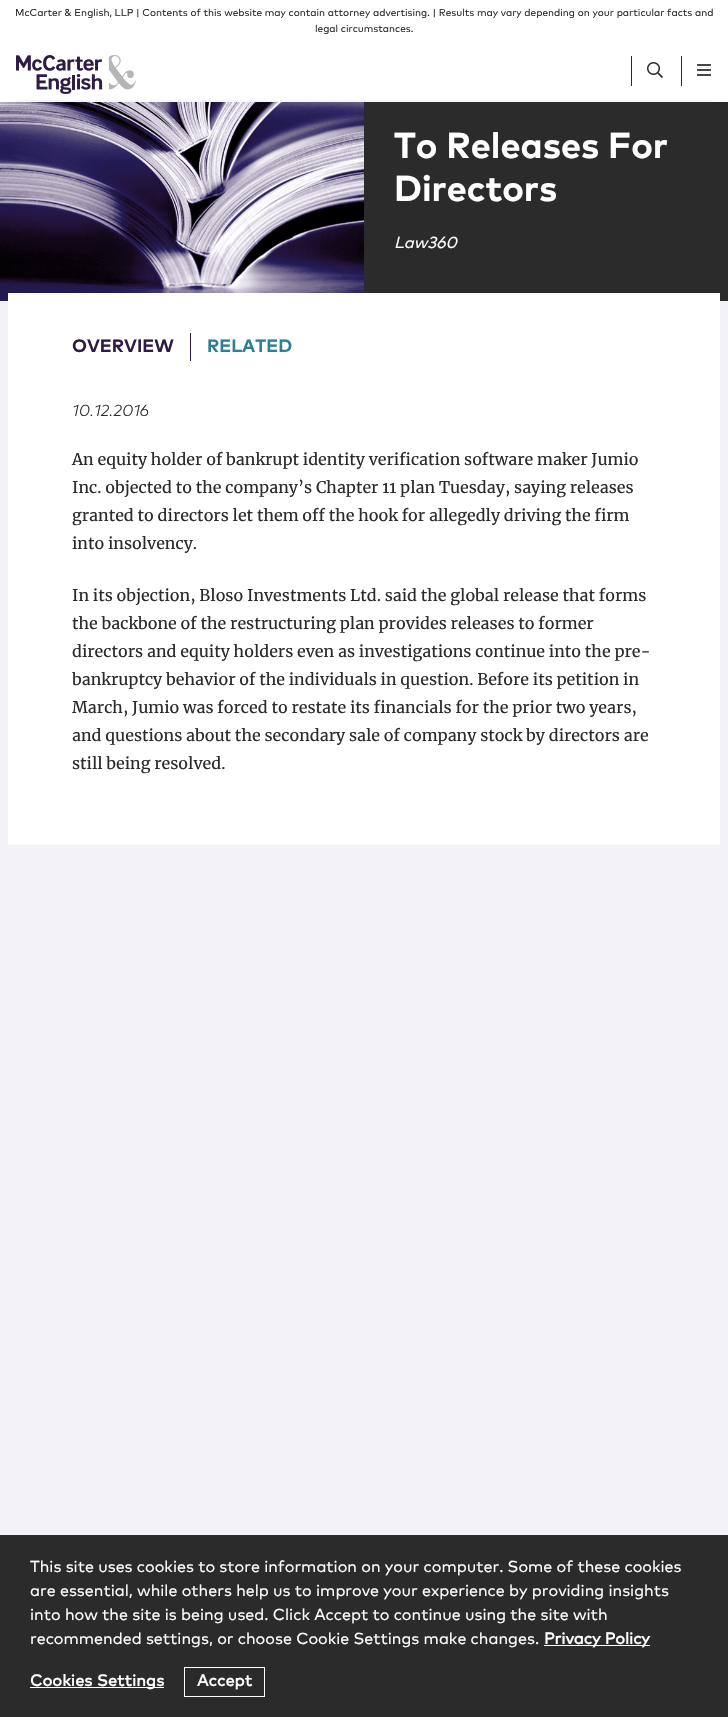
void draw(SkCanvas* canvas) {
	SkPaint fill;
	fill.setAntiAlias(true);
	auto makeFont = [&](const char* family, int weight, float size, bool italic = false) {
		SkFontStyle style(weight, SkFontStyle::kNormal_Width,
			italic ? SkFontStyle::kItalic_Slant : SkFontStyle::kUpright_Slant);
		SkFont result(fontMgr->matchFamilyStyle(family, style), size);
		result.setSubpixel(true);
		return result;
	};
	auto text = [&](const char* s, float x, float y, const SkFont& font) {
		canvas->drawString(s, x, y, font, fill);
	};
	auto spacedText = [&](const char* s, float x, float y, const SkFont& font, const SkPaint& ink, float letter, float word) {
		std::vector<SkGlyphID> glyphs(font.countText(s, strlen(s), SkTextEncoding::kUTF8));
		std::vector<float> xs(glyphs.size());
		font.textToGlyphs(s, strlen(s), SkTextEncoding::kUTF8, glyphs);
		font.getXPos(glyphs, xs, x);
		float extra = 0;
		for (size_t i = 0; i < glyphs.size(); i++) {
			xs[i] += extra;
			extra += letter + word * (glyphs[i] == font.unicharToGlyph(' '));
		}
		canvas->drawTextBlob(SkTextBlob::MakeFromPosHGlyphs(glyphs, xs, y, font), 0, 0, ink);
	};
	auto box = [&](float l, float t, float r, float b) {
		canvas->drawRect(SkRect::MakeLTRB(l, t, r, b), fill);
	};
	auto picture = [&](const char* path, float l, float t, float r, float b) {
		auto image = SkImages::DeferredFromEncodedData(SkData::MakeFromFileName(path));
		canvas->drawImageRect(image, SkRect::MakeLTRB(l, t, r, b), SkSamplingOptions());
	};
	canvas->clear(0xFFF3F2F7);
	fill.setColor(0xFFFFFFFF);
	box(0, 0, 728, 102);
	picture("image0.png", 16, 55, 136, 94);
	fill.setColor(0xFF2B2B2B);
	box(631, 56, 632, 86);
	picture("image1.png", 647, 62, 663, 78);
	box(681, 56, 682, 86);
	picture("image2.png", 697, 64, 711, 76);
	fill.setColor(0xFFF5F8FA);
	box(16, 100, 712, 102);
	fill.setColor(0xFF2B2B2B);
	box(0, 102, 728, 301);
	picture("image3.png", 0, 102, 364, 301);
	fill.setColor(0xFFFFFFFF);
	box(8, 293, 720, 845);
	fill.setColor(0xFF2E1C46);
	box(190, 333, 191, 361);
	fill.setColor(0xFF2B2B2B);
	box(0, 1535, 728, 1717);
	fill.setColor(0xFFFFFFFF);
	box(544, 1645, 650, 1646);
	box(30, 1687, 164, 1688);
	fill.setStyle(SkPaint::kStroke_Style);
	fill.setStrokeWidth(1);
	canvas->drawRect(SkRect::MakeLTRB(184.5f, 1667.5f, 264.5f, 1696.5f), fill);
	auto font1 = makeFont("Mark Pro", 400, 10);
	fill.setStyle(SkPaint::kFill_Style);
	fill.setColor(0xFF2B2B2B);
	text("McCarter & English, LLP | Contents of this website may contain attorney advertising. | Results may vary depending on your particular facts and", 15, 16, font1);
	text("legal circumstances.", 315, 32, font1);
	auto font2 = makeFont("Mark Pro", 700, 36);
	fill.setColor(0xFFFFFFFF);
	text("To Releases For", 394, 158, font2);
	text("Directors", 394, 201, font2);
	auto font3 = makeFont("Mark Pro", 400, 16, true);
	text("Law360", 394, 248, font3);
	auto font4 = makeFont("Mark Pro", 700, 18);
	fill.setColor(0xFF2E1C46);
	text("OVERVIEW", 72, 352, font4);
	fill.setColor(0xFF2D7F95);
	text("RELATED", 207, 352, font4);
	auto font5 = makeFont("Mark Pro", 300, 16);
	fill.setColor(0xFF2B2B2B);
	text("10.12.2016", 72, 416, font5);
	auto font6 = makeFont("Merriweather", 400, 16);
	text("An equity holder of bankrupt identity verification software maker Jumio", 72, 465, font6);
	text("Inc. objected to the company’s Chapter 11 plan Tuesday, saying releases", 72, 493, font6);
	text("granted to directors let them off the hook for allegedly driving the firm", 72, 521, font6);
	text("into insolvency.", 72, 549, font6);
	text("In its objection, Bloso Investments Ltd. said the global release that forms", 72, 601, font6);
	text("the backbone of the restructuring plan provides releases to former", 72, 629, font6);
	text("directors and equity holders even as investigations continue into the pre-", 72, 657, font6);
	text("bankruptcy behavior of the individuals in question. Before its petition in", 72, 685, font6);
	text("March, Jumio was forced to restate its financials for the prior two years,", 72, 713, font6);
	text("and questions about the secondary sale of company stock by directors are", 72, 741, font6);
	text("still being resolved.", 72, 769, font6);
	auto font7 = makeFont("Mark Pro", 400, 16);
	fill.setColor(0xFFFFFFFF);
	text("This site uses cookies to store information on your computer. Some of these cookies", 30, 1572, font7);
	text("are essential, while others help us to improve your experience by providing insights", 30, 1596, font7);
	text("into how the site is being used. Click Accept to continue using the site with", 30, 1620, font7);
	text("recommended settings, or choose Cookie Settings make changes.", 30, 1644, font7);
	auto font8 = makeFont("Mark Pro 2", 700, 16);
	text("Privacy Policy", 544, 1644, font8);
	spacedText("Cookies Settings", 30, 1686, font8, fill, 0.2f, 0);
	spacedText("Accept", 197, 1686, font8, fill, 0.2f, 0);
}
